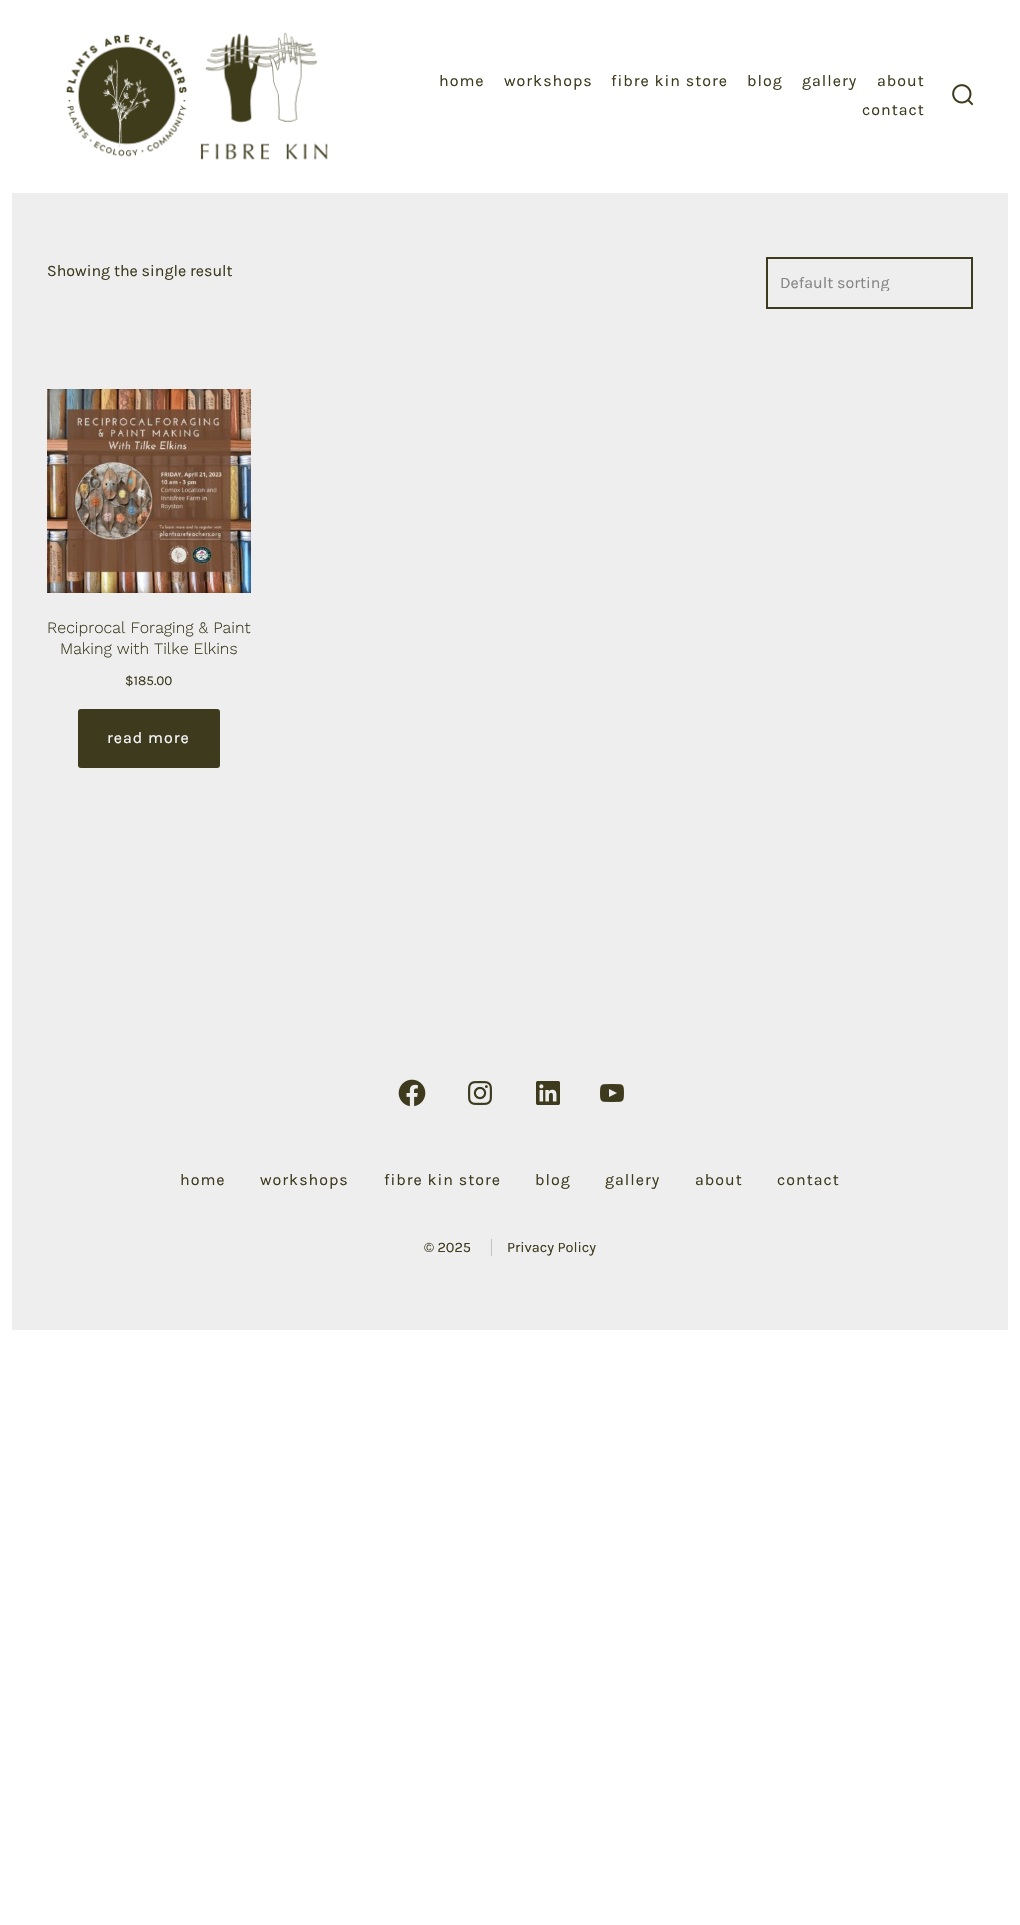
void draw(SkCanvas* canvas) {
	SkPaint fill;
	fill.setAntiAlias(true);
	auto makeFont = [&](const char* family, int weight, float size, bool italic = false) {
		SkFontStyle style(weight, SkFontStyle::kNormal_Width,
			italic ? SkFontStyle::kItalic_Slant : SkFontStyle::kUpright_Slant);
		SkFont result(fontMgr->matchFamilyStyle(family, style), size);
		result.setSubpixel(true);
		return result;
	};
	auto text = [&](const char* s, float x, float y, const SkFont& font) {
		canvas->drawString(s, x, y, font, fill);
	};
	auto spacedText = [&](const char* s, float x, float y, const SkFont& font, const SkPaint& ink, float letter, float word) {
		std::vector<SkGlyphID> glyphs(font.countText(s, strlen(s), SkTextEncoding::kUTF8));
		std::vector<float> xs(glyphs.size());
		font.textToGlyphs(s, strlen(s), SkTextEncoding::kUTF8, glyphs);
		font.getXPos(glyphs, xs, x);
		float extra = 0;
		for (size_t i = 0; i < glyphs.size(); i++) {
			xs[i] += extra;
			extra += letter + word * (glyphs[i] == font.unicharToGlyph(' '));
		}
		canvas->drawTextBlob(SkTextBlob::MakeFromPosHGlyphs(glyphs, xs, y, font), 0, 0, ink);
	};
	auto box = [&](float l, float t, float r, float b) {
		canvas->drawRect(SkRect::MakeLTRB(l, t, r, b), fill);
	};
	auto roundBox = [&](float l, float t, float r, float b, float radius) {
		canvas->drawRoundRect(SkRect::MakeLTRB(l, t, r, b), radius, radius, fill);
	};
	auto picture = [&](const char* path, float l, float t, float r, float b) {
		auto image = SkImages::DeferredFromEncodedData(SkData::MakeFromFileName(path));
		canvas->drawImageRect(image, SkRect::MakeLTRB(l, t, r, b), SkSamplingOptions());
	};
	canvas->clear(0xFFFFFFFF);
	fill.setColor(0xFFEEEEEE);
	box(12, 193, 1008, 1330);
	picture("image0.png", 66, 32, 328, 160);
	picture("image1.png", 952, 84, 973, 106);
	fill.setStyle(SkPaint::kStroke_Style);
	fill.setStrokeWidth(2);
	fill.setColor(0xFF3E3A1E);
	canvas->drawRect(SkRect::MakeLTRB(767, 258, 972, 308), fill);
	picture("image2.png", 47, 389, 251, 593);
	fill.setStyle(SkPaint::kFill_Style);
	roundBox(78, 709, 220, 768, 3);
	picture("image3.png", 398, 1079, 426, 1107);
	picture("image4.png", 468, 1081, 492, 1105);
	picture("image5.png", 536, 1081, 560, 1105);
	picture("image6.png", 600, 1084, 624, 1102);
	fill.setColor(0xFFC2C1BA);
	box(491, 1239, 492, 1256);
	auto font1 = makeFont("Karla", 400, 16);
	fill.setColor(0xFF3E3A1E);
	spacedText("home", 439, 86, font1, fill, 1, 0);
	spacedText("workshops", 504, 86, font1, fill, 1, 0);
	spacedText("fibre kin store", 611, 86, font1, fill, 1, 0);
	spacedText("blog", 747, 86, font1, fill, 1, 0);
	spacedText("gallery", 802, 86, font1, fill, 1, 0);
	spacedText("about", 877, 86, font1, fill, 1, 0);
	spacedText("contact", 862, 115, font1, fill, 1, 0);
	text("Showing the single result", 47, 276, font1);
	canvas->save();
	canvas->clipRect(SkRect::MakeLTRB(780, 275, 959, 291));
	fill.setColor(0xFF858585);
	text("Default sorting", 780, 288, font1);
	canvas->restore();
	auto font2 = makeFont("Work Sans", 300, 16);
	fill.setColor(0xFF3E3A1E);
	text("Reciprocal Foraging & Paint", 47, 633, font2);
	text("Making with Tilke Elkins", 60, 654, font2);
	auto font3 = makeFont("Karla", 400, 13.5f);
	text("$185.00", 125, 685, font3);
	fill.setColor(0xFFFFFFFF);
	spacedText("read more", 107, 743, font1, fill, 1, 0);
	fill.setColor(0xFF3E3A1E);
	spacedText("home", 180, 1185, font1, fill, 1, 0);
	spacedText("workshops", 260, 1185, font1, fill, 1, 0);
	spacedText("fibre kin store", 384, 1185, font1, fill, 1, 0);
	spacedText("blog", 535, 1185, font1, fill, 1, 0);
	spacedText("gallery", 605, 1185, font1, fill, 1, 0);
	spacedText("about", 695, 1185, font1, fill, 1, 0);
	spacedText("contact", 777, 1185, font1, fill, 1, 0);
	auto font4 = makeFont("Karla", 400, 14.5f);
	text("© 2025", 424, 1252, font4);
	text("Privacy Policy", 507, 1252, font4);
}
